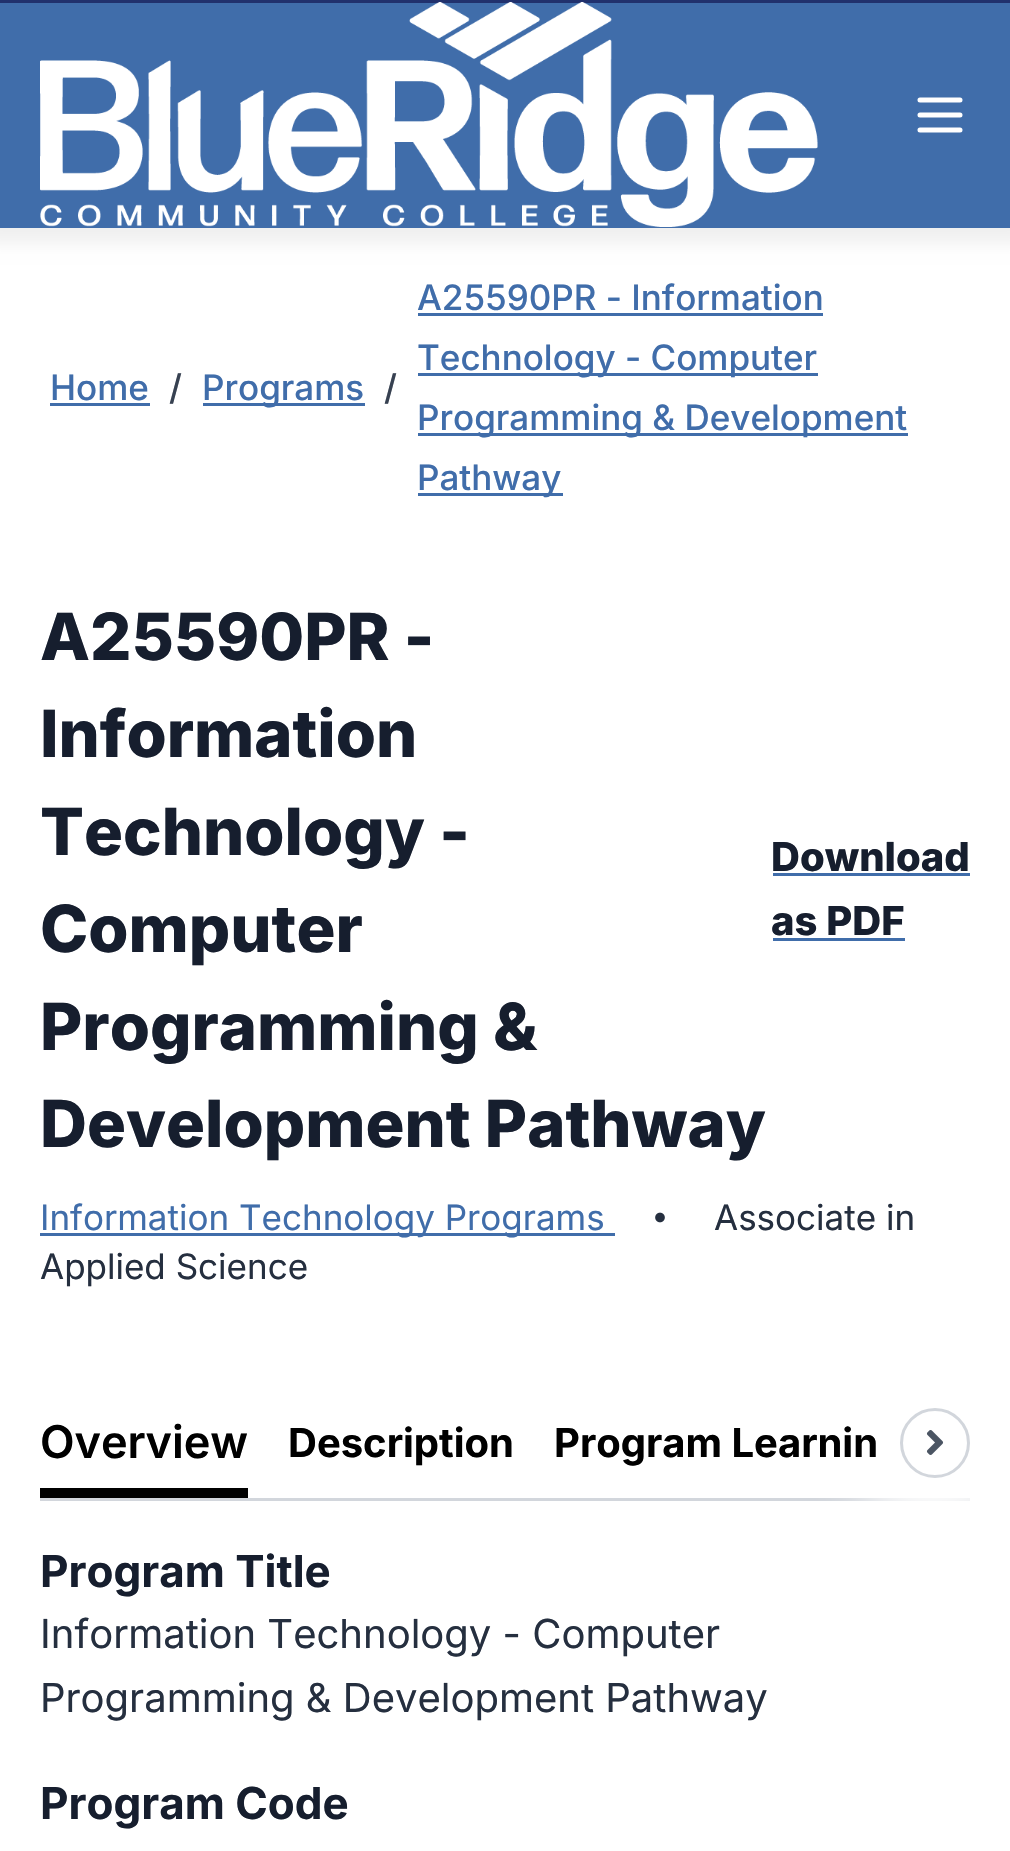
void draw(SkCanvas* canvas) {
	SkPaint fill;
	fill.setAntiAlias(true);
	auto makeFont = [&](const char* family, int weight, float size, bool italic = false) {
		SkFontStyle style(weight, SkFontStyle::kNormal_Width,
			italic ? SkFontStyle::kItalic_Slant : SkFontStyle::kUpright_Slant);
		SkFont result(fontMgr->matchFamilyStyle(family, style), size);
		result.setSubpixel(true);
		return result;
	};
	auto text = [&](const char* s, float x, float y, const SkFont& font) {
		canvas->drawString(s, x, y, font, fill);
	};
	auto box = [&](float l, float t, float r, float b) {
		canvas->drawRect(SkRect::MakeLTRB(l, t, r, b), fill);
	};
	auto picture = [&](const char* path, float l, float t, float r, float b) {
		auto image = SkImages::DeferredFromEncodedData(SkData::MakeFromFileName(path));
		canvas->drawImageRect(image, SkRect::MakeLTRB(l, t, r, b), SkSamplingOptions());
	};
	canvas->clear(0xFFFFFFFF);
	fill.setColor(0x0F000000);
	fill.setMaskFilter(SkMaskFilter::MakeBlur(kNormal_SkBlurStyle, 7.5f));
	canvas->drawRect(SkRect::MakeLTRB(-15, -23, 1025, 243), fill);
	fill.setMaskFilter(nullptr);
	fill.setColor(0xFF406DAA);
	box(0, 3, 1010, 228);
	fill.setColor(0xFF21316D);
	box(0, 0, 1010, 3);
	picture("image0.png", 40, 2, 818, 227);
	fill.setStyle(SkPaint::kStroke_Style);
	fill.setStrokeWidth(5);
	fill.setStrokeCap(SkPaint::kRound_Cap);
	fill.setStrokeJoin(SkPaint::kRound_Join);
	fill.setColor(0xFFFFFFFF);
	canvas->drawPath(SkPathBuilder().moveTo(920, 100).lineTo(960, 100).moveTo(920, 115).lineTo(960, 115).moveTo(920, 130).lineTo(960, 130).detach(), fill);
	fill.setStyle(SkPaint::kFill_Style);
	fill.setColor(0xFF406DAA);
	box(50, 403, 150, 406);
	box(203, 403, 365, 406);
	box(418, 313, 823, 316);
	box(418, 373, 818, 376);
	box(418, 433, 908, 436);
	box(418, 493, 563, 496);
	box(773, 873, 970, 876);
	box(773, 938, 905, 941);
	box(40, 1233, 615, 1236);
	picture("image1.png", 655, 1212, 665, 1223);
	fill.setColor(0xFFD2D6DC);
	box(40, 1498, 970, 1501);
	fill.setColor(0xFF000000);
	box(40, 1488, 248, 1498);
	fill.setColor(0xFFFFFFFF);
	fill.setMaskFilter(SkMaskFilter::MakeBlur(kNormal_SkBlurStyle, 25));
	canvas->drawRoundRect(SkRect::MakeLTRB(850, 1358, 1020, 1528), 85, 85, fill);
	fill.setMaskFilter(nullptr);
	fill.setStyle(SkPaint::kStroke_Style);
	fill.setStrokeWidth(3);
	fill.setStrokeCap(SkPaint::kButt_Cap);
	fill.setStrokeJoin(SkPaint::kMiter_Join);
	fill.setColor(0xFFD2D6DC);
	canvas->drawCircle(935, 1443, 33.5f, fill);
	picture("image2.png", 926, 1430, 944, 1455);
	auto font1 = makeFont("Inter", 500, 35);
	fill.setStyle(SkPaint::kFill_Style);
	fill.setColor(0xFF406DAA);
	text("Home", 50, 400, font1);
	fill.setColor(0xFF374151);
	text("/", 169, 400, font1);
	fill.setColor(0xFF406DAA);
	text("Programs", 202, 400, font1);
	fill.setColor(0xFF374151);
	text("/", 384, 400, font1);
	fill.setColor(0xFF406DAA);
	text("A25590PR - Information", 417, 310, font1);
	text("Technology - Computer", 417, 370, font1);
	text("Programming & Development", 417, 430, font1);
	text("Pathway", 417, 490, font1);
	auto font2 = makeFont("Inter", 800, 65);
	fill.setColor(0xFF161E2E);
	text("A25590PR -", 40, 660, font2);
	text("Information", 40, 757, font2);
	text("Technology -", 40, 855, font2);
	text("Computer", 40, 952, font2);
	text("Programming &", 40, 1050, font2);
	text("Development Pathway", 40, 1147, font2);
	auto font3 = makeFont("Inter", 800, 40);
	text("Download", 771, 871, font3);
	text("as PDF", 771, 935, font3);
	auto font4 = makeFont("Inter", 400, 35);
	fill.setColor(0xFF406DAA);
	text("Information Technology Programs", 40, 1230, font4);
	fill.setColor(0xFF252F3F);
	text("Associate in", 714, 1230, font4);
	text("Applied Science", 40, 1279, font4);
	auto font5 = makeFont("Inter", 600, 45);
	fill.setColor(0xFF000000);
	text("Overview", 40, 1458, font5);
	auto font6 = makeFont("Inter", 700, 40);
	text("Description", 288, 1457, font6);
	text("Program Learnin", 554, 1457, font6);
	auto font7 = makeFont("Inter", 700, 44);
	fill.setColor(0xFF161E2E);
	text("Program Title", 40, 1587, font7);
	auto font8 = makeFont("Inter", 400, 40);
	fill.setColor(0xFF252F3F);
	text("Information Technology - Computer", 40, 1648, font8);
	text("Programming & Development Pathway", 40, 1712, font8);
	fill.setColor(0xFF161E2E);
	text("Program Code", 40, 1819, font7);
}
